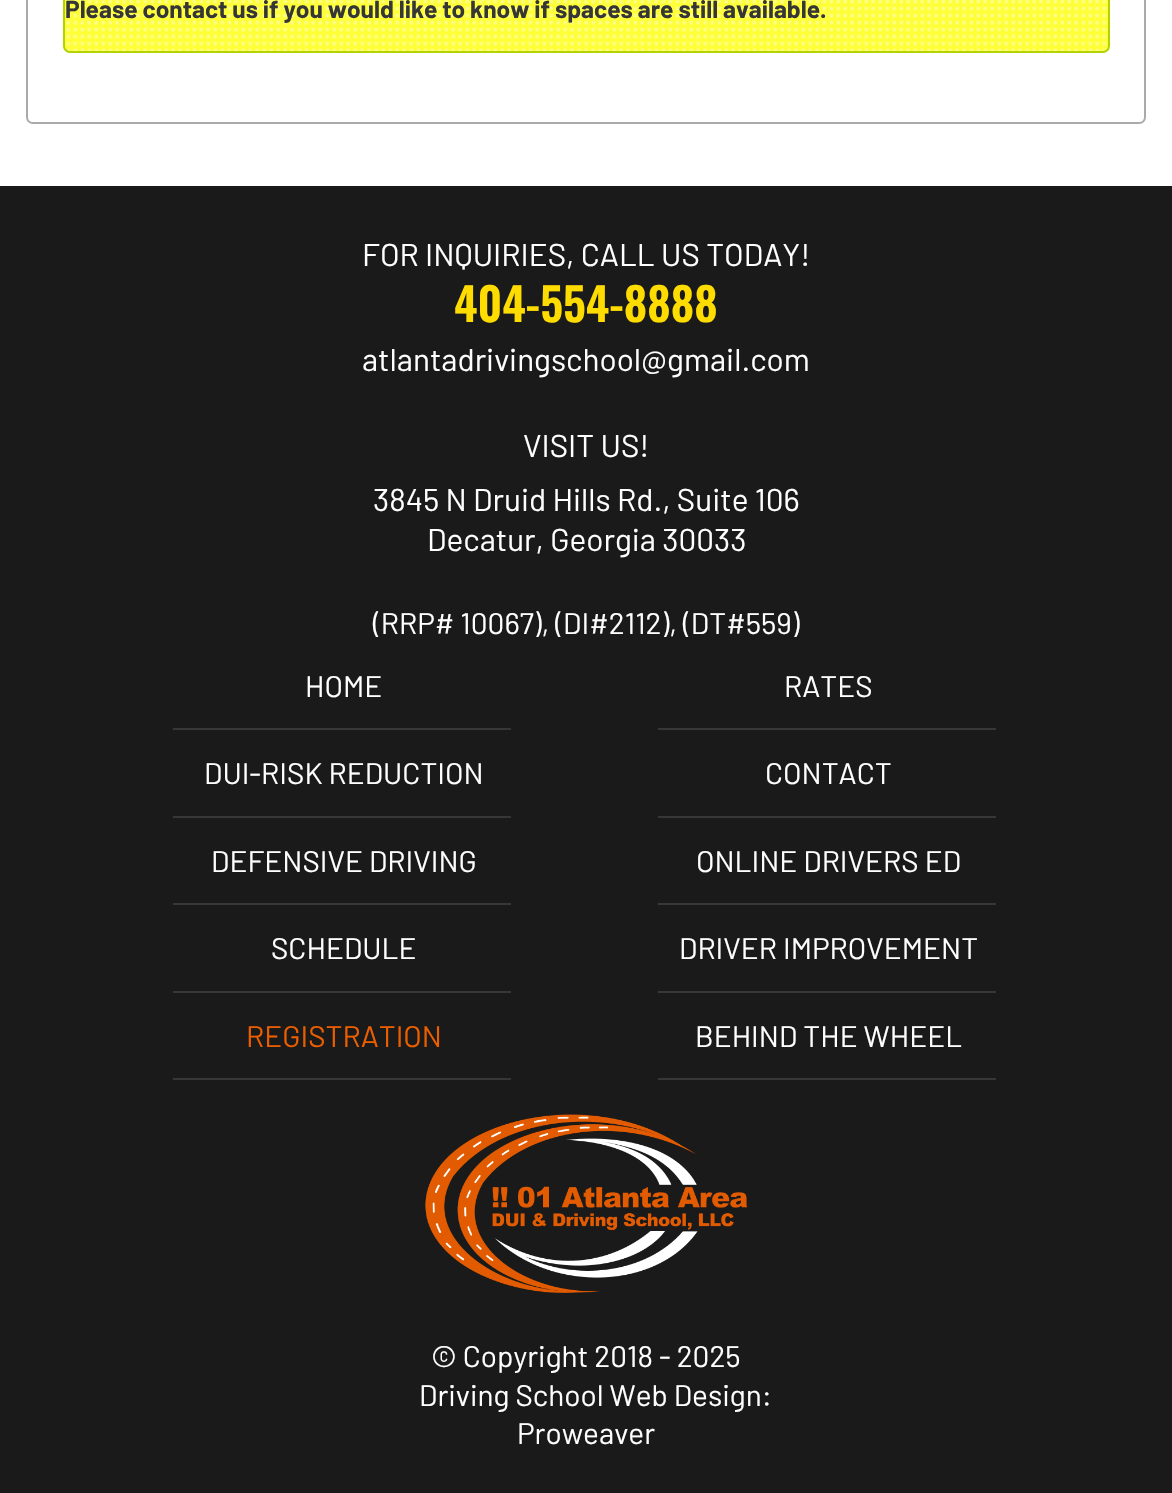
void draw(SkCanvas* canvas) {
	SkPaint fill;
	fill.setAntiAlias(true);
	auto makeFont = [&](const char* family, int weight, float size, bool italic = false) {
		SkFontStyle style(weight, SkFontStyle::kNormal_Width,
			italic ? SkFontStyle::kItalic_Slant : SkFontStyle::kUpright_Slant);
		SkFont result(fontMgr->matchFamilyStyle(family, style), size);
		result.setSubpixel(true);
		return result;
	};
	auto text = [&](const char* s, float x, float y, const SkFont& font) {
		canvas->drawString(s, x, y, font, fill);
	};
	auto box = [&](float l, float t, float r, float b) {
		canvas->drawRect(SkRect::MakeLTRB(l, t, r, b), fill);
	};
	auto picture = [&](const char* path, float l, float t, float r, float b) {
		auto image = SkImages::DeferredFromEncodedData(SkData::MakeFromFileName(path));
		canvas->drawImageRect(image, SkRect::MakeLTRB(l, t, r, b), SkSamplingOptions());
	};
	canvas->clear(0xFFFFFFFF);
	fill.setStyle(SkPaint::kStroke_Style);
	fill.setStrokeWidth(2);
	fill.setColor(0xFFAAAAAA);
	canvas->drawPath(SkPathBuilder().moveTo(27, -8).lineTo(1145, -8).lineTo(1145, 117).cubicTo(1145, 120.5f, 1142.5f, 123, 1139, 123).lineTo(33, 123).cubicTo(29.5f, 123, 27, 120.5f, 27, 117).close().detach(), fill);
	picture("image0.png", 63, 0, 1110, 52);
	fill.setColor(0xFFB4D100);
	canvas->drawRoundRect(SkRect::MakeLTRB(64, -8, 1109, 52), 6, 6, fill);
	fill.setStyle(SkPaint::kFill_Style);
	fill.setColor(0xFF1A1A1A);
	box(0, 186, 1172, 1493);
	fill.setColor(0xFF373737);
	box(173, 728, 511, 730);
	box(658, 728, 996, 730);
	box(173, 816, 511, 818);
	box(658, 816, 996, 818);
	box(173, 903, 511, 905);
	box(658, 903, 996, 905);
	box(173, 991, 511, 993);
	box(658, 991, 996, 993);
	box(173, 1078, 511, 1080);
	box(658, 1078, 996, 1080);
	picture("image1.png", 425, 1114, 748, 1293);
	auto font1 = makeFont("Barlow", 700, 24.5f);
	fill.setColor(0xFF363636);
	text("Please contact us if you would like to know if spaces are still available.", 65, 18, font1);
	auto font2 = makeFont("Barlow", 400, 31.5f);
	fill.setColor(0xFFFFFFFF);
	text("FOR INQUIRIES, CALL US TODAY!", 362, 266, font2);
	auto font3 = makeFont("Oswald", 600, 45.5f);
	fill.setColor(0xFFFFDC00);
	text("404-554-8888", 454, 322, font3);
	fill.setColor(0xFFFFFFFF);
	text("atlantadrivingschool@gmail.com", 362, 371, font2);
	text("VISIT US!", 523, 457, font2);
	text("3845 N Druid Hills Rd., Suite 106", 373, 511, font2);
	text("Decatur, Georgia 30033", 427, 551, font2);
	auto font4 = makeFont("Barlow", 400, 29.75f);
	text("(RRP# 10067), (DI#2112), (DT#559)", 373, 634, font4);
	text("HOME", 305, 697, font4);
	text("RATES", 784, 697, font4);
	text("DUI-RISK REDUCTION", 204, 784, font4);
	text("CONTACT", 765, 784, font4);
	text("DEFENSIVE DRIVING", 211, 872, font4);
	text("ONLINE DRIVERS ED", 696, 872, font4);
	text("SCHEDULE", 271, 959, font4);
	text("DRIVER IMPROVEMENT", 679, 959, font4);
	fill.setColor(0xFFEB5E00);
	text("REGISTRATION", 246, 1047, font4);
	fill.setColor(0xFFFFFFFF);
	text("BEHIND THE WHEEL", 695, 1047, font4);
	text("© Copyright 2018 - 2025", 431, 1367, font4);
	text("Driving School Web Design:", 419, 1406, font4);
	text("Proweaver", 517, 1444, font4);
}
